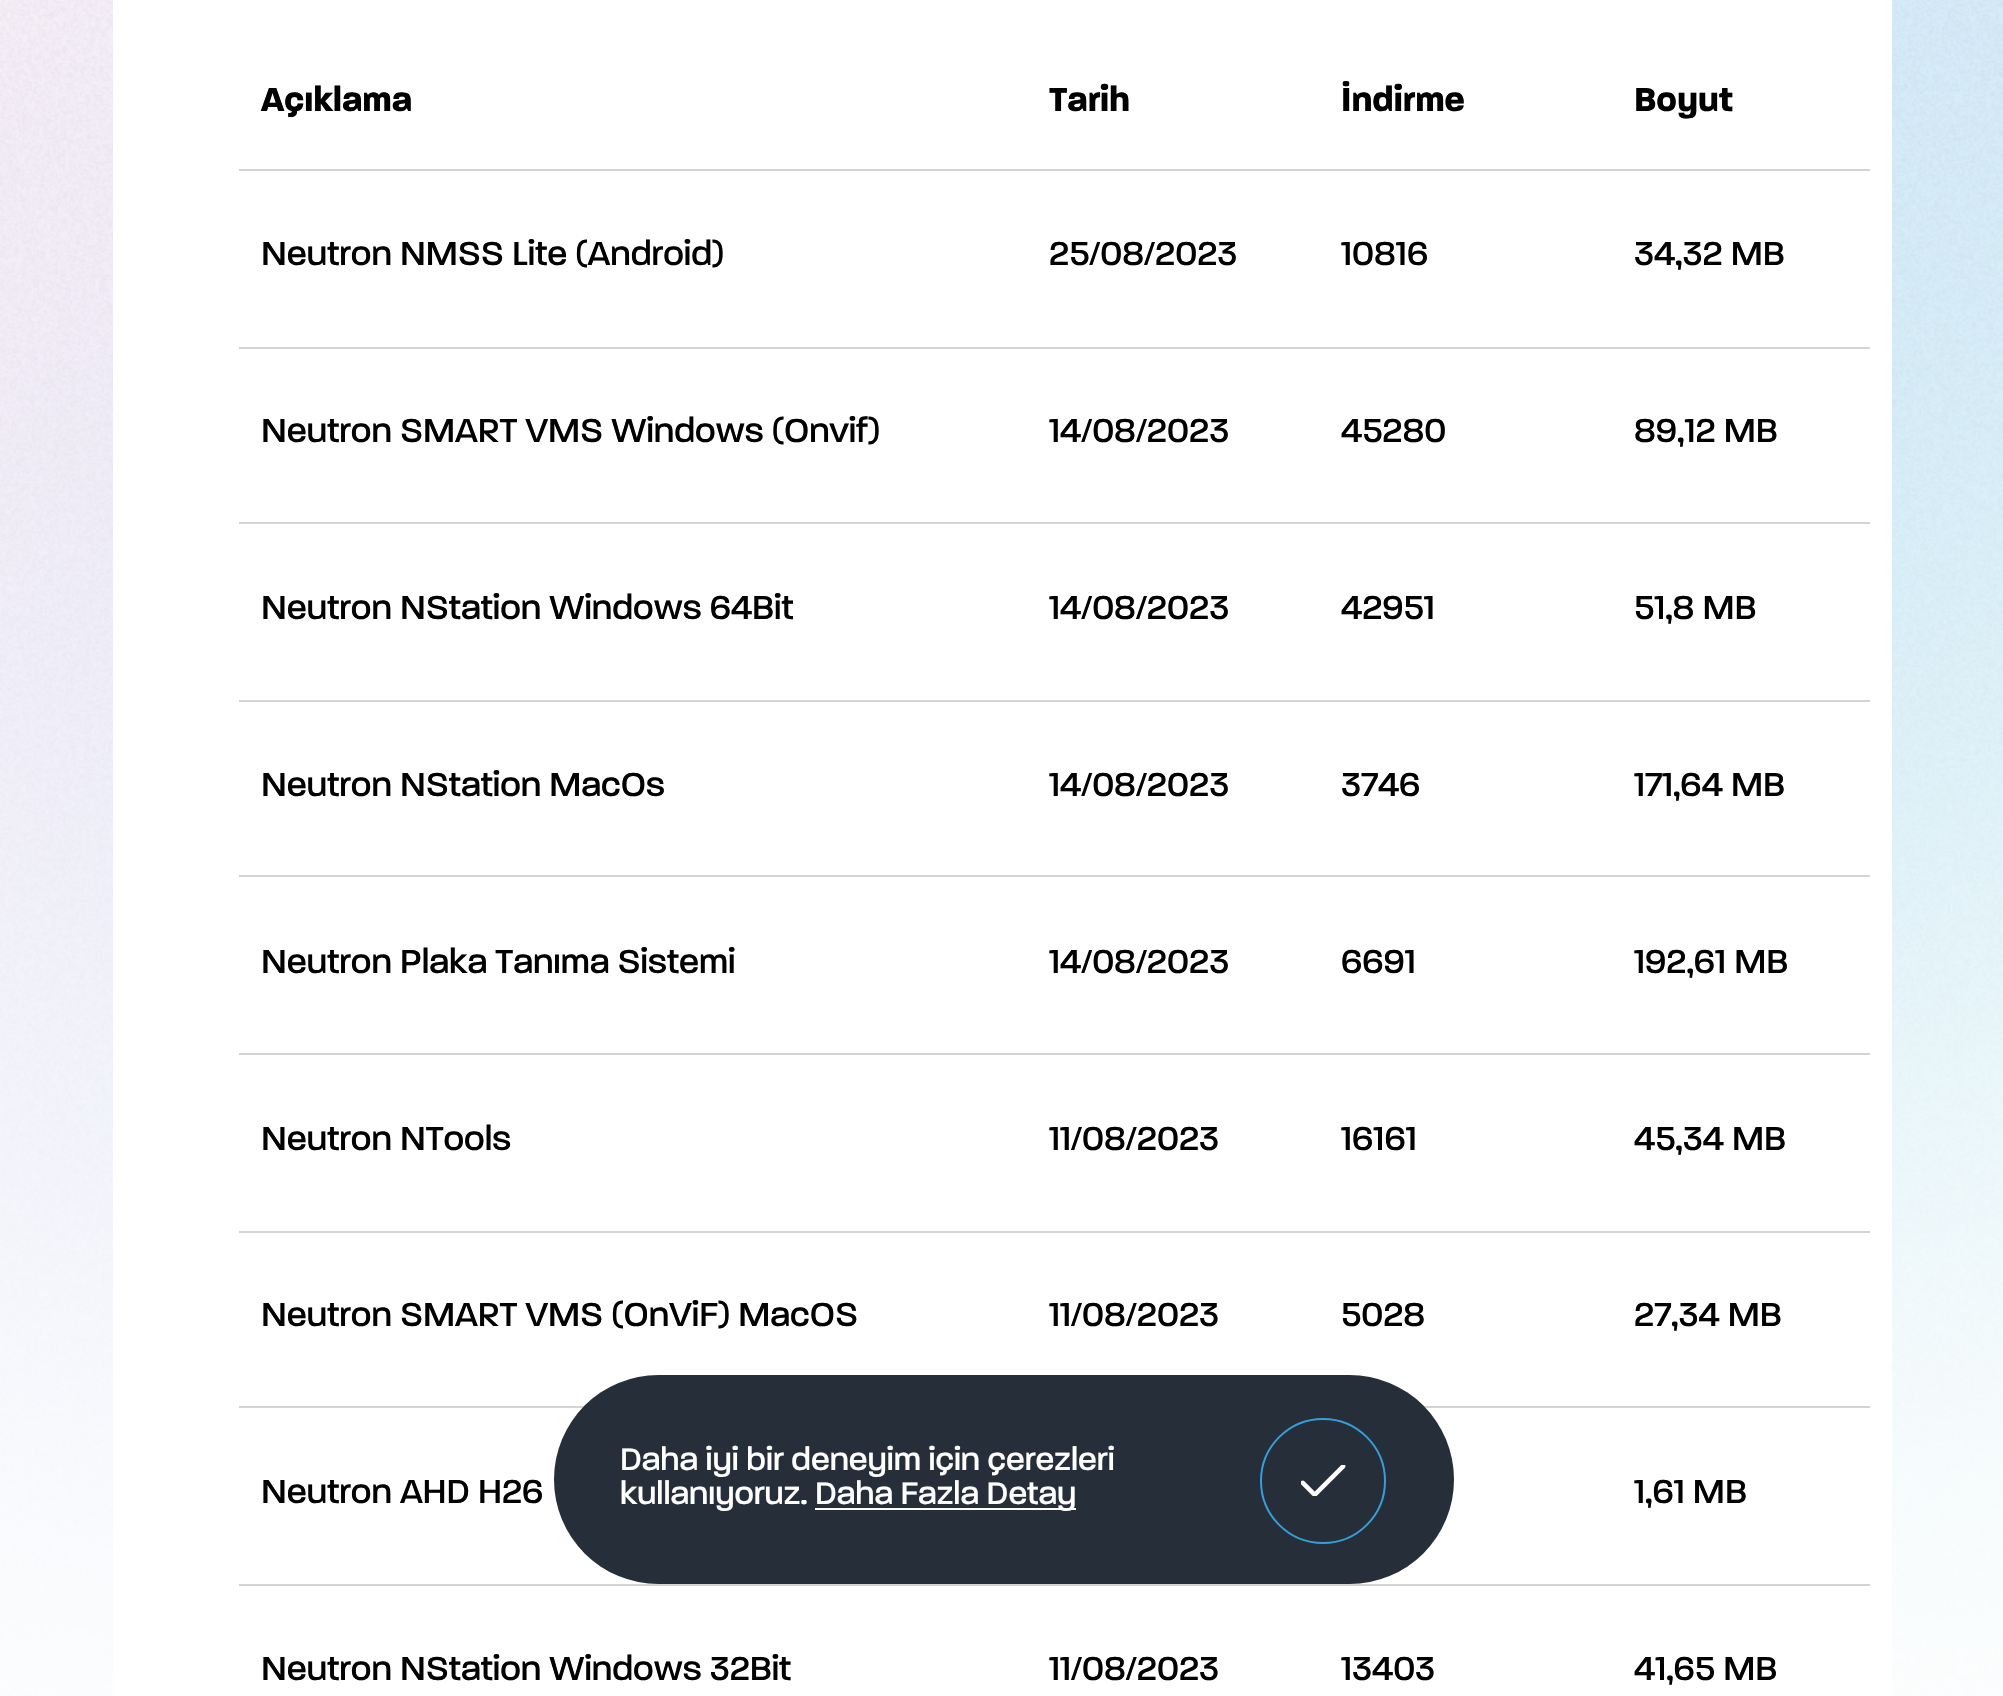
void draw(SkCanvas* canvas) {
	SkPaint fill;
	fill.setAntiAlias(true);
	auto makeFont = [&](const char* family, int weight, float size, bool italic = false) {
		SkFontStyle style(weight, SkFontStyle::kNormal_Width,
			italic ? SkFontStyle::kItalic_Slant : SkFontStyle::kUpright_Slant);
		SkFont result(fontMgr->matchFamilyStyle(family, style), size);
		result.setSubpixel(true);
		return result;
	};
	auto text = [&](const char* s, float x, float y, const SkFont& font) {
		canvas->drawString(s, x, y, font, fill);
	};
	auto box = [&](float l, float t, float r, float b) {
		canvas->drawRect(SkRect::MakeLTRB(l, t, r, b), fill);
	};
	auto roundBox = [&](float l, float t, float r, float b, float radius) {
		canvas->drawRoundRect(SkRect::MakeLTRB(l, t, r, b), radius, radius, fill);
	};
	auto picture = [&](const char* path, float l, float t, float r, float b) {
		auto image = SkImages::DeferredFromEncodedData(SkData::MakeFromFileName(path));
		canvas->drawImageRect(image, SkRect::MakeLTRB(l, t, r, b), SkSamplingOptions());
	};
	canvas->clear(0xFFFFFFFF);
	picture("image0.png", 0, 0, 2003, 1696);
	fill.setColor(0xFFFFFFFF);
	box(113, 0, 1892, 1696);
	fill.setColor(0xFFD4D4D4);
	box(239, 169, 1870, 171);
	box(239, 347, 1870, 349);
	box(239, 522, 1870, 524);
	box(239, 700, 1870, 702);
	box(239, 875, 1870, 877);
	box(239, 1053, 1870, 1055);
	box(239, 1231, 1870, 1233);
	box(1423, 1406, 1870, 1408);
	box(239, 1406, 585, 1408);
	box(239, 1584, 1870, 1586);
	fill.setColor(0xFF252E39);
	roundBox(554, 1375, 1454, 1584, 104.5f);
	fill.setColor(0xFFFFFFFF);
	box(815, 1508, 1076, 1510);
	fill.setStyle(SkPaint::kStroke_Style);
	fill.setStrokeWidth(2);
	fill.setColor(0xFF369ED8);
	canvas->drawCircle(1323, 1481, 62, fill);
	picture("image1.png", 1301, 1465, 1346, 1496);
	auto font1 = makeFont("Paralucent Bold", 700, 36);
	fill.setStyle(SkPaint::kFill_Style);
	fill.setColor(0xFF000000);
	text("Açıklama", 261, 111, font1);
	text("Tarih", 1049, 111, font1);
	text("İndirme", 1341, 111, font1);
	text("Boyut", 1634, 111, font1);
	auto font2 = makeFont("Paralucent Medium", 500, 36);
	text("Neutron NMSS Lite (Android)", 261, 265, font2);
	text("25/08/2023", 1049, 265, font2);
	text("10816", 1341, 265, font2);
	text("34,32 MB", 1634, 265, font2);
	text("Neutron SMART VMS Windows (Onvif)", 261, 442, font2);
	text("14/08/2023", 1049, 442, font2);
	text("45280", 1341, 442, font2);
	text("89,12 MB", 1634, 442, font2);
	text("Neutron NStation Windows 64Bit", 261, 619, font2);
	text("14/08/2023", 1049, 619, font2);
	text("42951", 1341, 619, font2);
	text("51,8 MB", 1634, 619, font2);
	text("Neutron NStation MacOs", 261, 796, font2);
	text("14/08/2023", 1049, 796, font2);
	text("3746", 1341, 796, font2);
	text("171,64 MB", 1634, 796, font2);
	text("Neutron Plaka Tanıma Sistemi", 261, 973, font2);
	text("14/08/2023", 1049, 973, font2);
	text("6691", 1341, 973, font2);
	text("192,61 MB", 1634, 973, font2);
	text("Neutron NTools", 261, 1150, font2);
	text("11/08/2023", 1049, 1150, font2);
	text("16161", 1341, 1150, font2);
	text("45,34 MB", 1634, 1150, font2);
	text("Neutron SMART VMS (OnViF) MacOS", 261, 1326, font2);
	text("11/08/2023", 1049, 1326, font2);
	text("5028", 1341, 1326, font2);
	text("27,34 MB", 1634, 1326, font2);
	text("Neutron AHD H26", 261, 1503, font2);
	text("1,61 MB", 1634, 1503, font2);
	text("Neutron NStation Windows 32Bit", 261, 1680, font2);
	text("11/08/2023", 1049, 1680, font2);
	text("13403", 1341, 1680, font2);
	text("41,65 MB", 1634, 1680, font2);
	auto font3 = makeFont("Paralucent Medium", 500, 33.75f);
	fill.setColor(0xFFFFFFFF);
	text("Daha iyi bir deneyim için çerezleri", 620, 1470, font3);
	text("kullanıyoruz.", 620, 1504, font3);
	text("Daha Fazla Detay", 815, 1504, font3);
}
